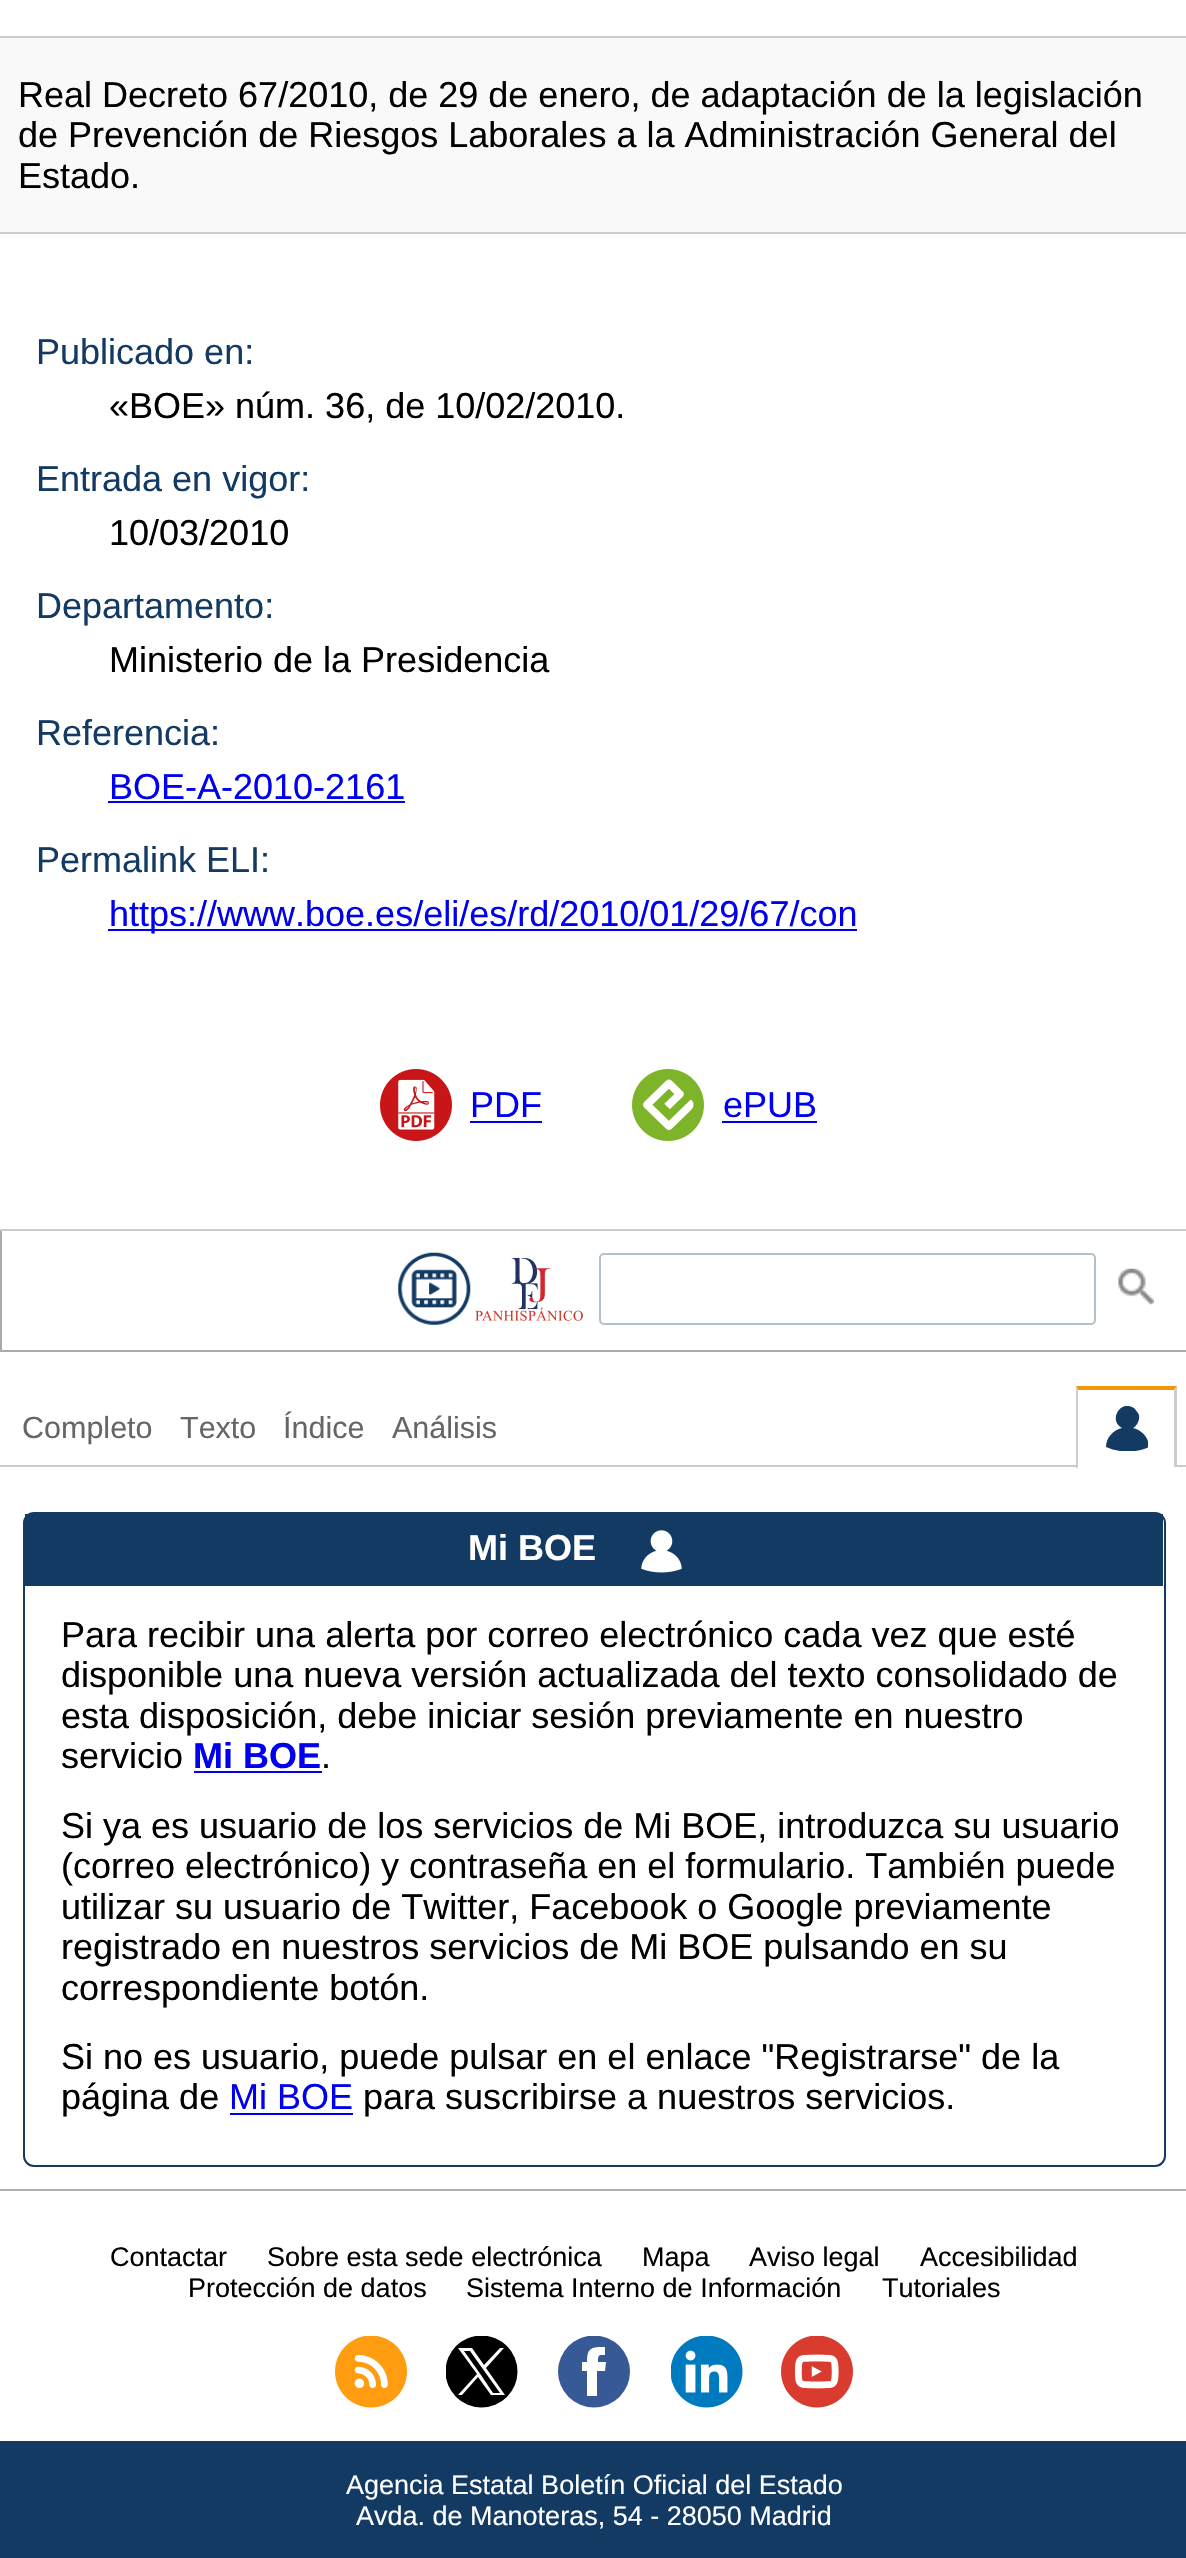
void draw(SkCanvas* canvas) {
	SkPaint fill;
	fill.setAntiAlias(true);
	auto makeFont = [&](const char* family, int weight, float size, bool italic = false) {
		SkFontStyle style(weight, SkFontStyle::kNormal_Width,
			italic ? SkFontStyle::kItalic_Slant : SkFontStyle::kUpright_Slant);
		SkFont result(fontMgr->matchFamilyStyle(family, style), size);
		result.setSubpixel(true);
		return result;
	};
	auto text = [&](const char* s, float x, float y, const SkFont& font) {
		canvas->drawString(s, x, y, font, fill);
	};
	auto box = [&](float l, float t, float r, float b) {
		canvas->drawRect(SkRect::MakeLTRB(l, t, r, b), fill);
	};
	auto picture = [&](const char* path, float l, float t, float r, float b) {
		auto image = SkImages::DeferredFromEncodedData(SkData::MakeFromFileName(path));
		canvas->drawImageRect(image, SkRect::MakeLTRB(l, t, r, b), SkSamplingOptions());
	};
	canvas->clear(0xFFFFFFFF);
	fill.setColor(0xFFCCCCCC);
	box(0, 36, 1186, 38);
	box(0, 1229, 1186, 1231);
	fill.setColor(0xFFF9F9F9);
	box(0, 38, 1186, 232);
	fill.setColor(0xFFCCCCCC);
	box(0, 232, 1186, 234);
	fill.setColor(0xFF0000EE);
	box(108, 801, 405, 803);
	box(108, 929, 857, 931);
	picture("image0.png", 380, 1069, 452, 1141);
	box(470, 1121, 542, 1123);
	picture("image1.png", 632, 1069, 704, 1141);
	box(722, 1121, 817, 1123);
	fill.setColor(0xFFAAAAAA);
	box(0, 1350, 1186, 1352);
	box(0, 1231, 2, 1352);
	picture("image2.png", 398, 1252, 471, 1325);
	picture("image3.png", 475, 1258, 583, 1321);
	fill.setStyle(SkPaint::kStroke_Style);
	fill.setStrokeWidth(2);
	fill.setColor(0xFFB3C0CD);
	canvas->drawRoundRect(SkRect::MakeLTRB(600, 1254, 1095, 1324), 4, 4, fill);
	picture("image4.png", 1118, 1268, 1154, 1305);
	fill.setStyle(SkPaint::kFill_Style);
	fill.setColor(0xFFCCCCCC);
	box(0, 1465, 1186, 1467);
	fill.setColor(0xFFFFFFFF);
	box(1078, 1465, 1174, 1467);
	fill.setColor(0xFFF29708);
	canvas->drawPath(SkPathBuilder().moveTo(1076, 1386).lineTo(1177, 1386).lineTo(1174, 1390).lineTo(1078, 1390).close().detach(), fill);
	fill.setColor(0xFFCCCCCC);
	canvas->drawPath(SkPathBuilder().moveTo(1177, 1386).lineTo(1177, 1469).lineTo(1174, 1467).lineTo(1174, 1390).close().detach(), fill);
	fill.setColor(0xFFFFFFFF);
	box(1174, 1467, 1177, 1469);
	fill.setColor(0xFFCCCCCC);
	canvas->drawPath(SkPathBuilder().moveTo(1076, 1469).lineTo(1076, 1386).lineTo(1078, 1390).lineTo(1078, 1467).close().detach(), fill);
	canvas->save();
	canvas->clipRect(SkRect::MakeLTRB(1105, 1406, 1148, 1451));
	fill.setColor(0xFF123A63);
	canvas->drawPath(SkPathBuilder().moveTo(1133, 1428).cubicTo(1137, 1426, 1140, 1420, 1139, 1415).cubicTo(1138, 1413, 1136, 1410, 1134, 1408).cubicTo(1120, 1399, 1108, 1421, 1122, 1428).cubicTo(1113, 1430, 1106, 1438, 1106, 1447).cubicTo(1119, 1453, 1136, 1453, 1149, 1447).cubicTo(1149, 1438, 1142, 1430, 1133, 1428).close().detach(), fill);
	canvas->restore();
	fill.setStyle(SkPaint::kStroke_Style);
	canvas->drawRoundRect(SkRect::MakeLTRB(24, 1513, 1165, 2166), 10, 10, fill);
	fill.setStyle(SkPaint::kFill_Style);
	box(25, 1514, 1163, 1586);
	picture("image5.png", 641, 1530, 682, 1573);
	fill.setColor(0xFF0000EE);
	box(194, 1771, 322, 1773);
	box(230, 2113, 353, 2115);
	fill.setColor(0xFFAEAEAE);
	box(0, 2189, 1186, 2191);
	picture("image6.png", 335, 2336, 407, 2408);
	canvas->save();
	canvas->clipRect(SkRect::MakeLTRB(446, 2336, 518, 2408));
	fill.setColor(0xFF000000);
	canvas->drawCircle(481.5f, 2371.5f, 36, fill);
	canvas->restore();
	fill.setColor(0xFFFFFFFF);
	canvas->drawPath(SkPathBuilder().moveTo(486, 2368).lineTo(504, 2348).lineTo(500, 2348).lineTo(484, 2365).lineTo(472, 2348).lineTo(458, 2348).lineTo(477, 2374).lineTo(458, 2395).lineTo(462, 2395).lineTo(478, 2377).lineTo(491, 2395).lineTo(505, 2395).close().moveTo(481, 2375).lineTo(464, 2351).lineTo(470, 2351).lineTo(500, 2393).lineTo(493, 2393).close().detach(), fill);
	canvas->save();
	canvas->clipRect(SkRect::MakeLTRB(558, 2336, 630, 2408));
	fill.setColor(0xFF375A96);
	canvas->drawCircle(594, 2371.5f, 36, fill);
	canvas->restore();
	fill.setColor(0xFFFFFFFF);
	canvas->drawPath(SkPathBuilder(SkPathFillType::kEvenOdd).moveTo(598, 2362).cubicTo(598, 2354, 599, 2355, 605, 2355).lineTo(605, 2347).cubicTo(592, 2347, 587, 2347, 587, 2362).lineTo(582, 2362).lineTo(582, 2371).lineTo(587, 2371).lineTo(587, 2396).lineTo(597, 2396).lineTo(597, 2371).lineTo(605, 2371).lineTo(606, 2362).close().detach(), fill);
	picture("image7.png", 671, 2336, 743, 2408);
	picture("image8.png", 781, 2336, 853, 2408);
	fill.setColor(0xFF123A63);
	box(0, 2441, 1186, 2558);
	auto font1 = makeFont("Liberation Sans", 400, 36);
	fill.setColor(0xFF000000);
	text("Real Decreto 67/2010, de 29 de enero, de adaptación de la legislación", 18, 107, font1);
	text("de Prevención de Riesgos Laborales a la Administración General del", 18, 147, font1);
	text("Estado.", 18, 188, font1);
	fill.setColor(0xFF123A63);
	text("Publicado en:", 36, 364, font1);
	fill.setColor(0xFF000000);
	text("«BOE» núm. 36, de 10/02/2010.", 109, 418, font1);
	fill.setColor(0xFF123A63);
	text("Entrada en vigor:", 36, 491, font1);
	fill.setColor(0xFF000000);
	text("10/03/2010", 109, 545, font1);
	fill.setColor(0xFF123A63);
	text("Departamento:", 36, 618, font1);
	fill.setColor(0xFF000000);
	text("Ministerio de la Presidencia", 109, 672, font1);
	fill.setColor(0xFF123A63);
	text("Referencia:", 36, 745, font1);
	fill.setColor(0xFF0000EE);
	text("BOE-A-2010-2161", 109, 799, font1);
	fill.setColor(0xFF123A63);
	text("Permalink ELI:", 36, 872, font1);
	fill.setColor(0xFF0000EE);
	text("https://www.boe.es/eli/es/rd/2010/01/29/67/con", 109, 926, font1);
	text("PDF", 470, 1117, font1);
	text("ePUB", 723, 1117, font1);
	auto font2 = makeFont("Liberation Sans", 400, 30.5f);
	fill.setColor(0xFF666666);
	text("Completo", 22, 1438, font2);
	text("Texto", 180, 1438, font2);
	text("Índice", 283, 1438, font2);
	text("Análisis", 392, 1438, font2);
	auto font3 = makeFont("Liberation Sans", 700, 36);
	fill.setColor(0xFFFFFFFF);
	text("Mi BOE", 468, 1560, font3);
	fill.setColor(0xFF000000);
	text("Para recibir una alerta por correo electrónico cada vez que esté", 61, 1647, font1);
	text("disponible una nueva versión actualizada del texto consolidado de", 61, 1687, font1);
	text("esta disposición, debe iniciar sesión previamente en nuestro", 61, 1728, font1);
	text("servicio", 61, 1768, font1);
	fill.setColor(0xFF0000EE);
	text("Mi BOE", 193, 1768, font3);
	fill.setColor(0xFF000000);
	text(".", 321, 1768, font1);
	text("Si ya es usuario de los servicios de Mi BOE, introduzca su usuario", 61, 1838, font1);
	text("(correo electrónico) y contraseña en el formulario. También puede", 61, 1878, font1);
	text("utilizar su usuario de Twitter, Facebook o Google previamente", 61, 1919, font1);
	text("registrado en nuestros servicios de Mi BOE pulsando en su", 61, 1959, font1);
	text("correspondiente botón.", 61, 2000, font1);
	text("Si no es usuario, puede pulsar en el enlace \"Registrarse\" de la", 61, 2069, font1);
	text("página de", 61, 2109, font1);
	fill.setColor(0xFF0000EE);
	text("Mi BOE", 229, 2109, font1);
	fill.setColor(0xFF000000);
	text("para suscribirse a nuestros servicios.", 363, 2109, font1);
	auto font4 = makeFont("Liberation Sans", 400, 27);
	text("Contactar", 110, 2266, font4);
	text("Sobre esta sede electrónica", 267, 2266, font4);
	text("Mapa", 642, 2266, font4);
	text("Aviso legal", 749, 2266, font4);
	text("Accesibilidad", 920, 2266, font4);
	text("Protección de datos", 188, 2297, font4);
	text("Sistema Interno de Información", 466, 2297, font4);
	text("Tutoriales", 882, 2297, font4);
	fill.setColor(0xFFFFFFFF);
	text("Agencia Estatal Boletín Oficial del Estado", 346, 2494, font4);
	text("Avda. de Manoteras, 54 - 28050 Madrid", 356, 2525, font4);
}
